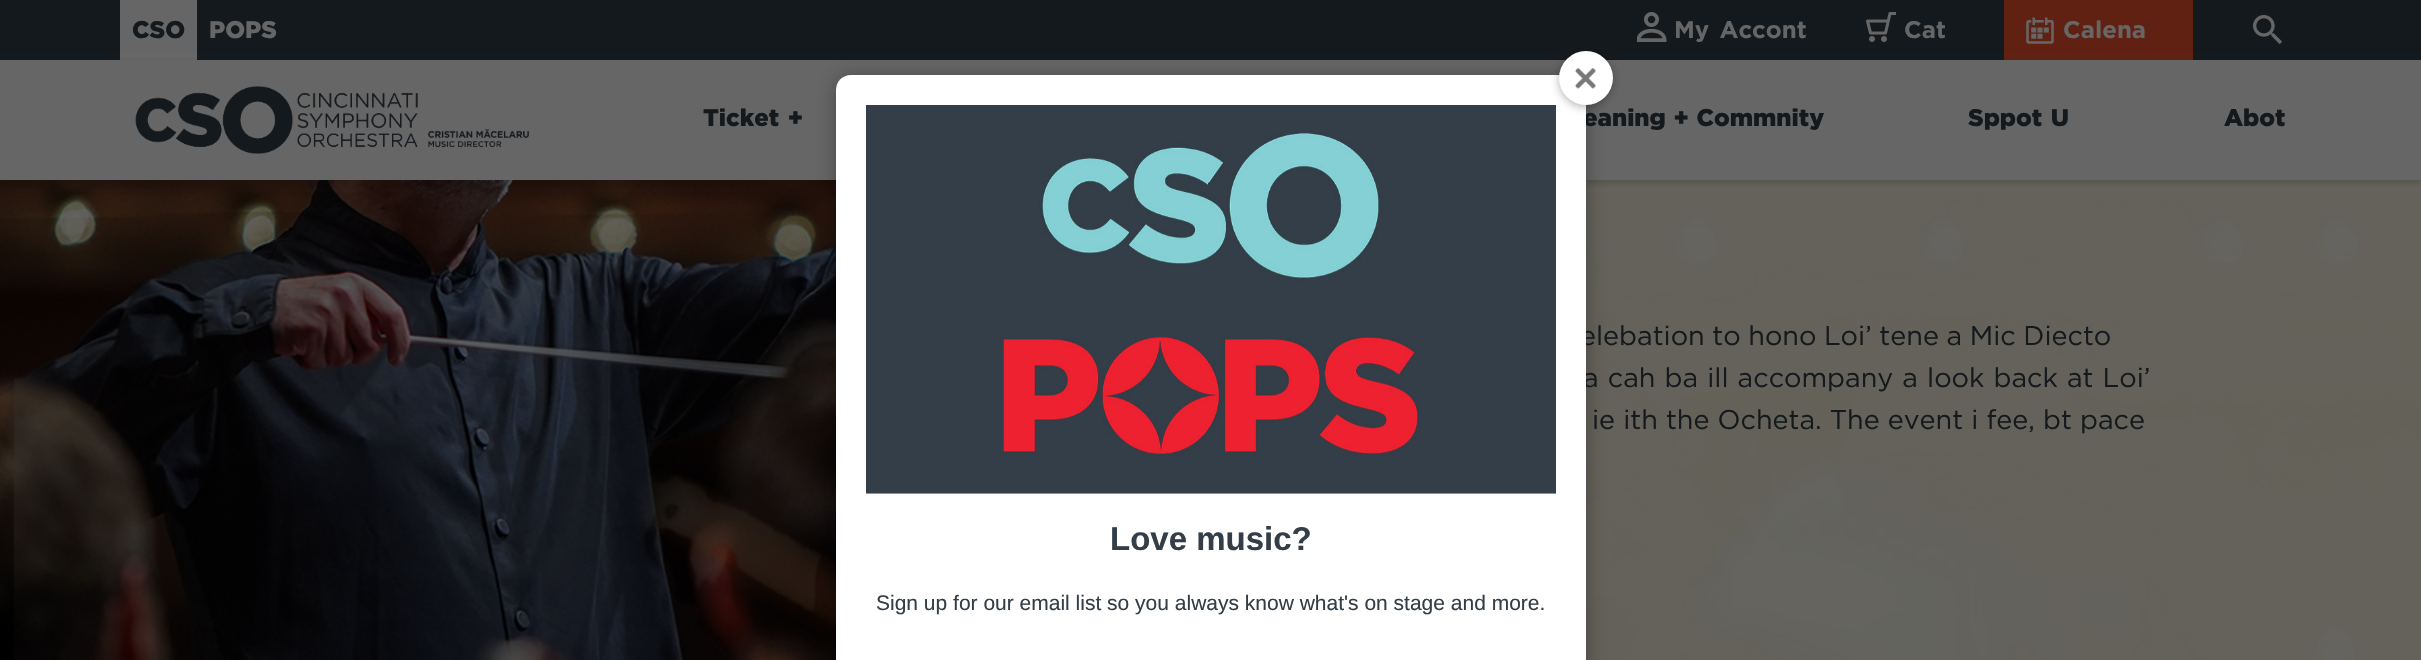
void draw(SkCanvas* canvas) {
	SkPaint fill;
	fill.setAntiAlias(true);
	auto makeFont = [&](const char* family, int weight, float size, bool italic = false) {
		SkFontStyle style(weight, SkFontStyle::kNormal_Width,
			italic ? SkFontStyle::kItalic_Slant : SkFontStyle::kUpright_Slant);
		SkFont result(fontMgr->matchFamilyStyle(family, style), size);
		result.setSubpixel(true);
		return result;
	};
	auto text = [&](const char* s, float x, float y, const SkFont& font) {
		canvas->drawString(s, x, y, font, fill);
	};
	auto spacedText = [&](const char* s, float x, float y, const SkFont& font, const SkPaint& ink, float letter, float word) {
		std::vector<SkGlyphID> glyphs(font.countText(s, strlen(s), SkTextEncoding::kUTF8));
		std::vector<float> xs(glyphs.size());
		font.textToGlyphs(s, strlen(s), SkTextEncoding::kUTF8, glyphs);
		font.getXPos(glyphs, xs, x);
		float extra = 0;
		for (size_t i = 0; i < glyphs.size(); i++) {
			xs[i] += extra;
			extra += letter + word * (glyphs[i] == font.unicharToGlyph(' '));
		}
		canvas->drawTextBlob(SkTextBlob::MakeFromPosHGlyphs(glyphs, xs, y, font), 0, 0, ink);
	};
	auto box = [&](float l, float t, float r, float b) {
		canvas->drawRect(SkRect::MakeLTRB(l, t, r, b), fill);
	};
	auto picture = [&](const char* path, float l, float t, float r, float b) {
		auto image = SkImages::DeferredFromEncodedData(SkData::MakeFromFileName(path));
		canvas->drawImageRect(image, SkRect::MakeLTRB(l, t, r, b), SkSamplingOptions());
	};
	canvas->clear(0xFFFFFFFF);
	fill.setColor(0xFF14191D);
	box(0, 0, 2421, 60);
	fill.setColor(0xFF666666);
	box(120, 0, 197, 60);
	picture("image0.png", 1637, 12, 1667, 42);
	picture("image1.png", 1866, 12, 1896, 42);
	fill.setColor(0xFF602112);
	box(2004, 0, 2193, 60);
	picture("image2.png", 2026, 17, 2054, 44);
	picture("image3.png", 2253, 15, 2283, 45);
	picture("image5.png", 0, 180, 2421, 660);
	fill.setColor(0x3314191D);
	fill.setMaskFilter(SkMaskFilter::MakeBlur(kNormal_SkBlurStyle, 3));
	canvas->drawRect(SkRect::MakeLTRB(0, 63, 2421, 183), fill);
	fill.setMaskFilter(nullptr);
	fill.setColor(0xFF666666);
	box(0, 60, 2421, 180);
	picture("image4.png", 135, 86, 529, 154);
	fill.setColor(0x4D000000);
	fill.setMaskFilter(SkMaskFilter::MakeBlur(kNormal_SkBlurStyle, 10));
	canvas->drawRoundRect(SkRect::MakeLTRB(836, 77, 1586, 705), 15, 15, fill);
	fill.setMaskFilter(nullptr);
	auto font1 = makeFont("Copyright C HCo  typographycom", 400, 24);
	fill.setColor(0xFF14191D);
	text("CSO", 132, 38, font1);
	fill.setColor(0xFF666666);
	text("POPS", 209, 38, font1);
	auto font2 = makeFont("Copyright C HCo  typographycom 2", 400, 24);
	spacedText("My Account", 1674, 38, font2, fill, 0, 3);
	text("Cart", 1904, 38, font2);
	text("Calendar", 2063, 38, font2);
	fill.setColor(0xFF14191D);
	spacedText("Tickets + E", 703, 126, font1, fill, 0, 2);
	spacedText("earning + Community", 1583, 126, font1, fill, 0, 1);
	spacedText("Support Us", 1968, 126, font1, fill, 0, 2);
	text("About", 2224, 126, font1);
	auto font3 = makeFont("Copyright C HCo  typographycom", 300, 27);
	spacedText("elebration to honor Louis’ tenure as Music Director", 1580, 345, font3, fill, 0, -0.5f);
	spacedText("a cash bar will accompany a look back at Louis’", 1583, 387, font3, fill, 0, 1);
	text("ies with the Orchestra. The event is free, but space", 1592, 429, font3);
	fill.setColor(0xFFFFFFFF);
	canvas->drawPath(SkPathBuilder().moveTo(851, 75).lineTo(1571, 75).cubicTo(1579.5f, 75, 1586, 81.5f, 1586, 90).lineTo(1586, 660).lineTo(836, 660).lineTo(836, 90).cubicTo(836, 81.5f, 842.5f, 75, 851, 75).close().detach(), fill);
	picture("image7.png", 866, 105, 1556, 494);
	fill.setColor(0x4D000000);
	fill.setMaskFilter(SkMaskFilter::MakeBlur(kNormal_SkBlurStyle, 4));
	canvas->drawRoundRect(SkRect::MakeLTRB(1559, 53, 1613, 107), 27, 27, fill);
	fill.setMaskFilter(nullptr);
	fill.setColor(0xFFFFFFFF);
	canvas->drawCircle(1586, 78, 27, fill);
	picture("image6.png", 1574, 68, 1596, 89);
	auto font4 = makeFont("Liberation Sans", 700, 33);
	fill.setColor(0xFF333E48);
	text("Love music?", 1110, 550, font4);
	auto font5 = makeFont("Liberation Sans", 400, 21);
	text("Sign up for our email list so you always know what's on stage and more.", 876, 610, font5);
}
